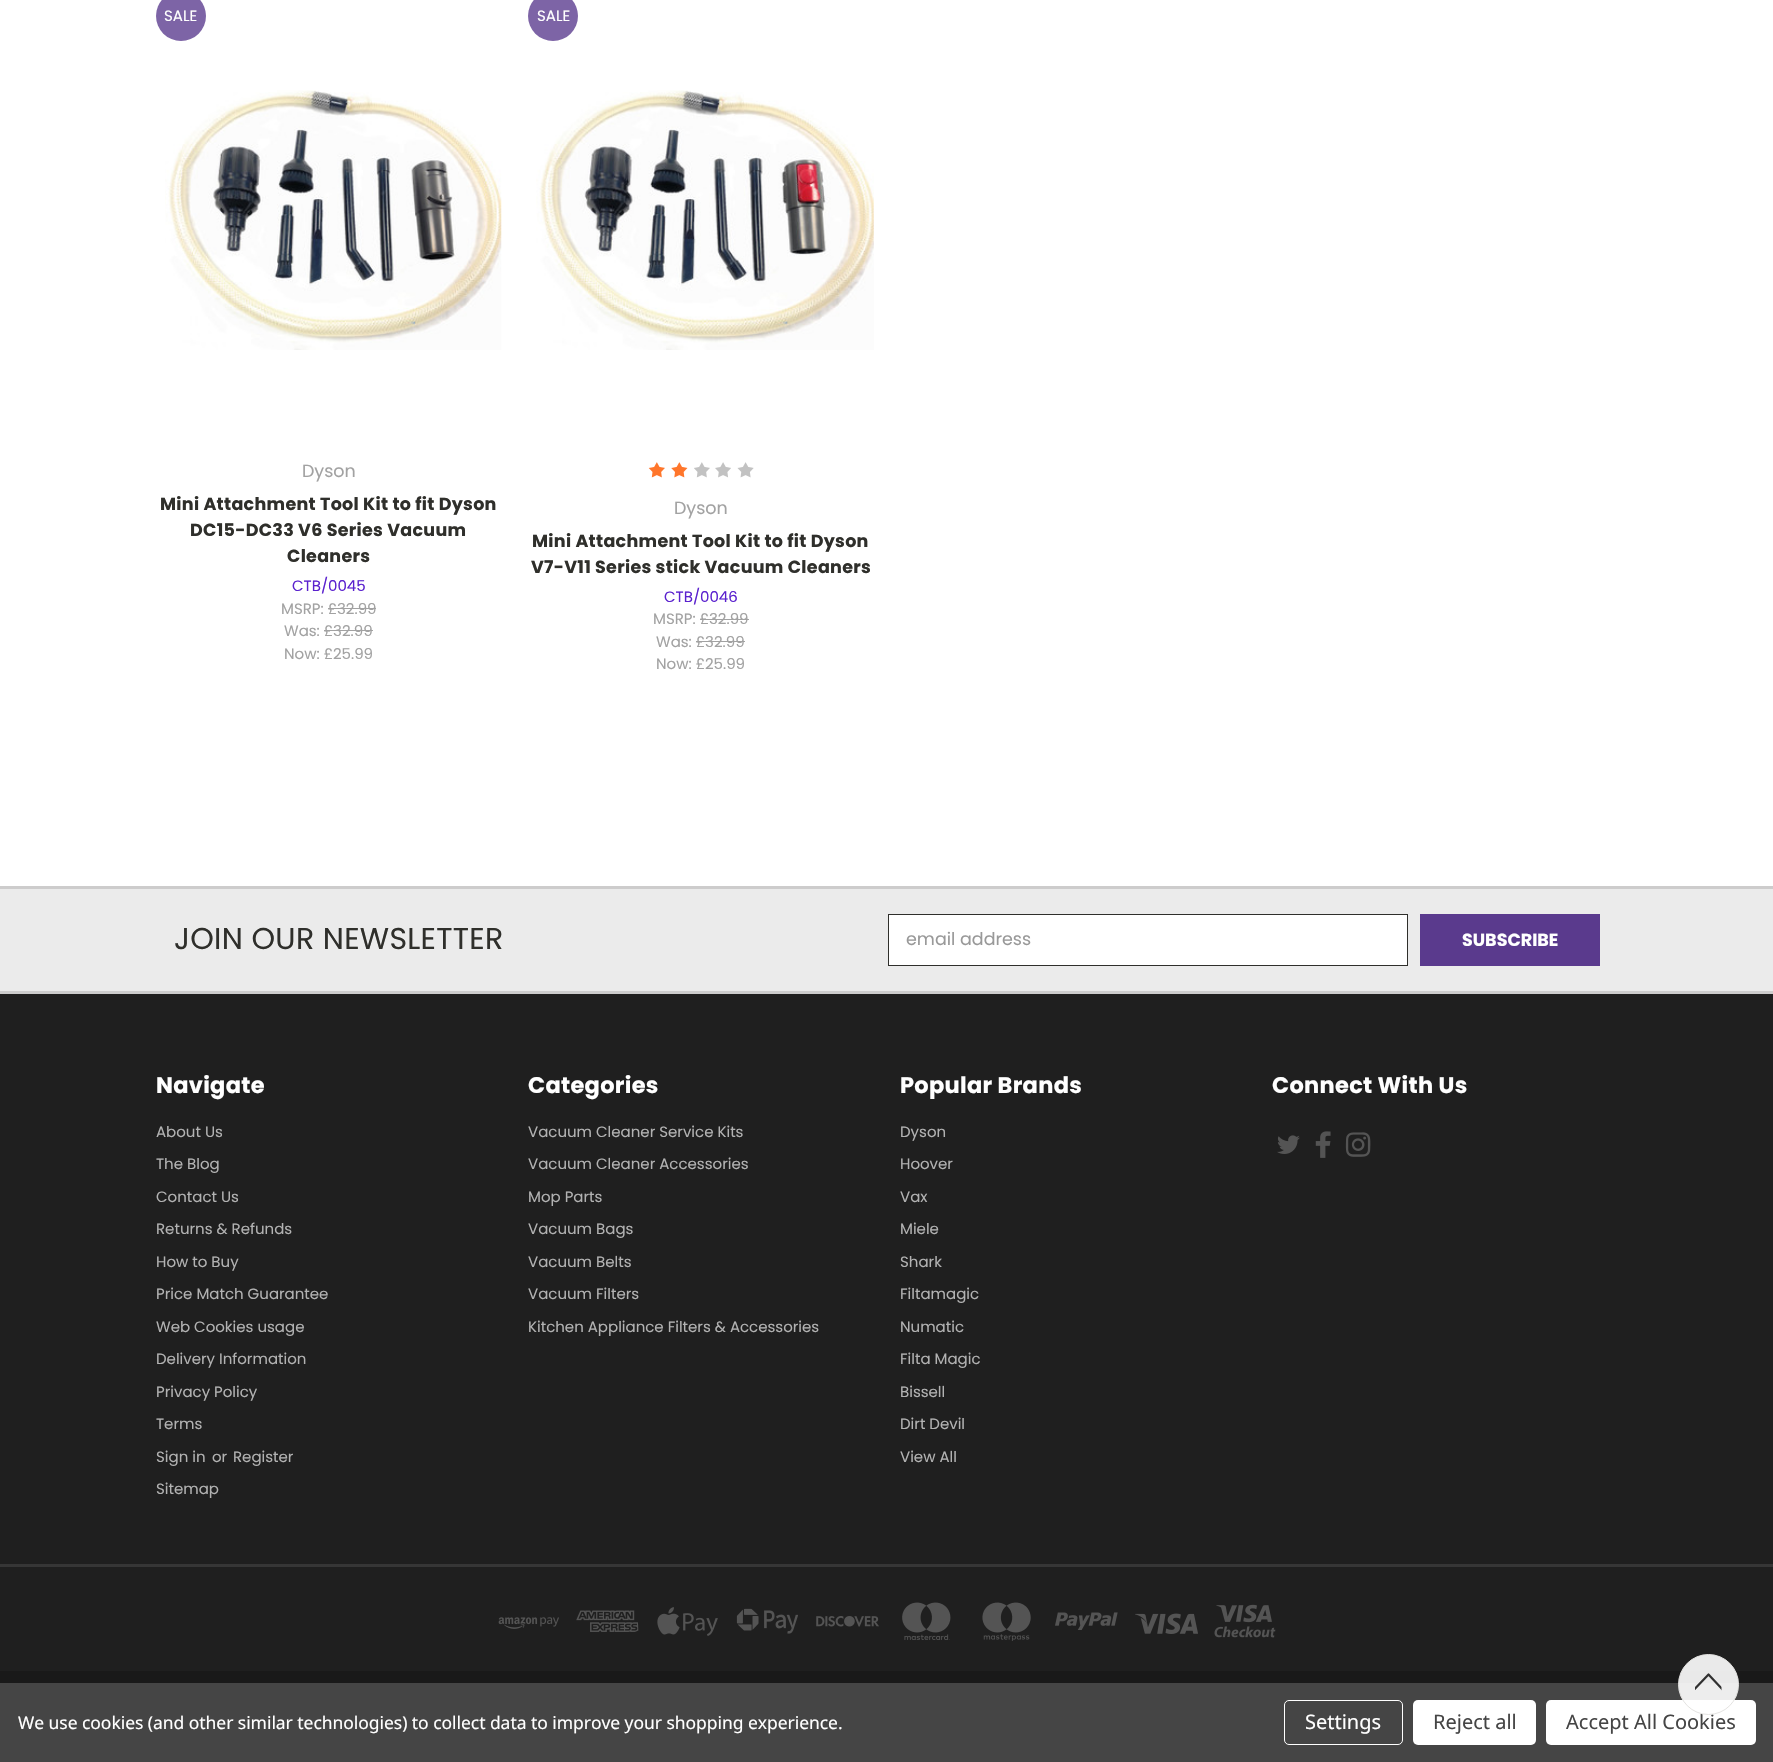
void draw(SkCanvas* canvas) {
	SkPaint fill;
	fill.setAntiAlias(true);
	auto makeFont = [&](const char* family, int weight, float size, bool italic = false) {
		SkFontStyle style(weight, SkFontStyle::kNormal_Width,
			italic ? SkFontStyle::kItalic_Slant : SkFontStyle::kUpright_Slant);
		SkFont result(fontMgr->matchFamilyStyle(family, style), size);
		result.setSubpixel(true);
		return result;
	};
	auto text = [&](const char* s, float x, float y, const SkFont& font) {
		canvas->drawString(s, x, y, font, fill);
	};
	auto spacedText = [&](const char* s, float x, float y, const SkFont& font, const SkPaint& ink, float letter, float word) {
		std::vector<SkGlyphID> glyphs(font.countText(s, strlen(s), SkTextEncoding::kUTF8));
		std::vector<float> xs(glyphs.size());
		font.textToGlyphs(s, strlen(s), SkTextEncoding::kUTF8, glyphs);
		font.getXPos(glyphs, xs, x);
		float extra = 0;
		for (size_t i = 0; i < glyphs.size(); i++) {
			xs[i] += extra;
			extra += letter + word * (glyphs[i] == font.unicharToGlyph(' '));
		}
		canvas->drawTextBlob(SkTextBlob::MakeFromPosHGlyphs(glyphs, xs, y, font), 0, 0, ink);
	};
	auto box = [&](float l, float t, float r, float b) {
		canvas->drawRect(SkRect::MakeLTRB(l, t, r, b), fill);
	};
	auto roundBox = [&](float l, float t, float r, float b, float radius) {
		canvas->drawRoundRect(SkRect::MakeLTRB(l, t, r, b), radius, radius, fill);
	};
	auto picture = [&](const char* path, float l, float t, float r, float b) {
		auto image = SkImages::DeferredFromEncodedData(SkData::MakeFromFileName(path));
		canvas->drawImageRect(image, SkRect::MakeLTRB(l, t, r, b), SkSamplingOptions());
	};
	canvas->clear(0xFFFFFFFF);
	fill.setColor(0xFF7D64A6);
	canvas->drawCircle(181, 16, 25, fill);
	picture("image0.png", 165, 90, 502, 350);
	fill.setColor(0xFFA2A2A2);
	box(328, 608, 376, 609);
	box(324, 630, 373, 631);
	fill.setColor(0xFF7D64A6);
	canvas->drawCircle(553, 16, 25, fill);
	picture("image1.png", 536, 90, 874, 350);
	picture("image2.png", 648, 462, 665, 478);
	picture("image3.png", 671, 462, 688, 478);
	picture("image4.png", 694, 462, 710, 478);
	picture("image5.png", 715, 462, 731, 478);
	picture("image6.png", 737, 462, 754, 478);
	fill.setColor(0xFFA2A2A2);
	box(700, 619, 749, 620);
	box(696, 641, 745, 642);
	fill.setColor(0xFFEBEBEB);
	box(0, 889, 1773, 991);
	fill.setColor(0xFFCDCCCC);
	box(0, 886, 1773, 889);
	fill.setColor(0xFFFFFFFF);
	canvas->drawRect(SkRect::MakeLTRB(888.5f, 914.5f, 1407.5f, 965.5f), fill);
	fill.setStyle(SkPaint::kStroke_Style);
	fill.setStrokeWidth(1);
	fill.setColor(0xFF2F2F2B);
	canvas->drawRect(SkRect::MakeLTRB(888.5f, 914.5f, 1407.5f, 965.5f), fill);
	fill.setStyle(SkPaint::kFill_Style);
	fill.setColor(0xFF5A3A8D);
	box(1420, 914, 1600, 966);
	fill.setColor(0xFF1F1F1F);
	box(0, 994, 1773, 1671);
	fill.setColor(0xFFCDCCCC);
	box(0, 991, 1773, 994);
	picture("image7.png", 1277, 1135, 1300, 1154);
	picture("image8.png", 1315, 1131, 1331, 1158);
	picture("image9.png", 1345, 1132, 1371, 1157);
	fill.setColor(0xFF363636);
	box(0, 1564, 1773, 1567);
	picture("image10.png", 498, 1617, 559, 1629);
	picture("image11.png", 576, 1610, 639, 1632);
	picture("image12.png", 657, 1607, 718, 1636);
	picture("image13.png", 736, 1608, 798, 1634);
	picture("image14.png", 816, 1616, 879, 1627);
	picture("image15.png", 902, 1602, 951, 1640);
	picture("image16.png", 982, 1602, 1031, 1641);
	picture("image17.png", 1055, 1612, 1118, 1630);
	picture("image18.png", 1135, 1613, 1198, 1634);
	picture("image19.png", 1214, 1604, 1276, 1638);
	fill.setColor(0xFF191919);
	box(0, 1671, 1773, 1683);
	fill.setColor(0xFF454545);
	box(0, 1683, 1773, 1762);
	fill.setStyle(SkPaint::kStroke_Style);
	fill.setColor(0xFFFFFFFF);
	canvas->drawRoundRect(SkRect::MakeLTRB(1284.5f, 1700.5f, 1402.5f, 1744.5f), 4.5f, 4.5f, fill);
	fill.setStyle(SkPaint::kFill_Style);
	roundBox(1413, 1700, 1536, 1745, 5);
	roundBox(1546, 1700, 1756, 1745, 5);
	auto font1 = makeFont("Poppins", 400, 15);
	text("SALE", 164, 21, font1);
	auto font2 = makeFont("Poppins", 400, 17.5f);
	fill.setColor(0xFFA2A2A2);
	text("Dyson", 302, 477, font2);
	auto font3 = makeFont("Poppins", 700, 17.5f);
	fill.setColor(0xFF2F2F2B);
	spacedText("Mini Attachment Tool Kit to fit Dyson", 160, 510, font3, fill, 0.3f, 0);
	spacedText("DC15-DC33 V6 Series Vacuum", 190, 536, font3, fill, 0.3f, 0);
	spacedText("Cleaners", 287, 562, font3, fill, 0.3f, 0);
	fill.setColor(0xFF5A21CE);
	text("CTB/0045", 292, 591, font1);
	fill.setColor(0xFFA2A2A2);
	text("MSRP: £32.99", 281, 614, font1);
	text("Was: £32.99", 284, 636, font1);
	text("Now: £25.99", 284, 659, font1);
	fill.setColor(0xFFFFFFFF);
	text("SALE", 537, 21, font1);
	fill.setColor(0xFFA2A2A2);
	text("Dyson", 674, 514, font2);
	fill.setColor(0xFF2F2F2B);
	spacedText("Mini Attachment Tool Kit to fit Dyson", 532, 547, font3, fill, 0.3f, 0);
	spacedText("V7-V11 Series stick Vacuum Cleaners", 531, 573, font3, fill, 0.3f, 0);
	fill.setColor(0xFF5A21CE);
	text("CTB/0046", 664, 602, font1);
	fill.setColor(0xFFA2A2A2);
	text("MSRP: £32.99", 653, 624, font1);
	text("Was: £32.99", 656, 647, font1);
	text("Now: £25.99", 656, 669, font1);
	auto font4 = makeFont("Poppins", 400, 30);
	fill.setColor(0xFF2F2F2B);
	spacedText("JOIN OUR NEWSLETTER", 174, 949, font4, fill, 0.3f, 0);
	fill.setColor(0xFF999999);
	text("email address", 906, 945, font2);
	fill.setColor(0xFFFFFFFF);
	text("SUBSCRIBE", 1462, 946, font3);
	auto font5 = makeFont("Poppins", 700, 22.5f);
	spacedText("Navigate", 156, 1093, font5, fill, 0.3f, 0);
	fill.setColor(0xFFB2B2B2);
	text("About Us", 156, 1137, font1);
	text("The Blog", 156, 1169, font1);
	text("Contact Us", 156, 1202, font1);
	text("Returns & Refunds", 156, 1234, font1);
	text("How to Buy", 156, 1267, font1);
	text("Price Match Guarantee", 156, 1299, font1);
	text("Web Cookies usage", 156, 1332, font1);
	text("Delivery Information", 156, 1364, font1);
	text("Privacy Policy", 156, 1397, font1);
	text("Terms", 156, 1429, font1);
	text("Sign in", 156, 1462, font1);
	text("or", 212, 1462, font1);
	text("Register", 233, 1462, font1);
	text("Sitemap", 156, 1494, font1);
	fill.setColor(0xFFFFFFFF);
	spacedText("Categories", 528, 1093, font5, fill, 0.3f, 0);
	fill.setColor(0xFFB2B2B2);
	text("Vacuum Cleaner Service Kits", 528, 1137, font1);
	text("Vacuum Cleaner Accessories", 528, 1169, font1);
	text("Mop Parts", 528, 1202, font1);
	text("Vacuum Bags", 528, 1234, font1);
	text("Vacuum Belts", 528, 1267, font1);
	text("Vacuum Filters", 528, 1299, font1);
	text("Kitchen Appliance Filters & Accessories", 528, 1332, font1);
	fill.setColor(0xFFFFFFFF);
	spacedText("Popular Brands", 900, 1093, font5, fill, 0.3f, 0);
	fill.setColor(0xFFB2B2B2);
	text("Dyson", 900, 1137, font1);
	text("Hoover", 900, 1169, font1);
	text("Vax", 900, 1202, font1);
	text("Miele", 900, 1234, font1);
	text("Shark", 900, 1267, font1);
	text("Filtamagic", 900, 1299, font1);
	text("Numatic", 900, 1332, font1);
	text("Filta Magic", 900, 1364, font1);
	text("Bissell", 900, 1397, font1);
	text("Dirt Devil", 900, 1429, font1);
	text("View All", 900, 1462, font1);
	fill.setColor(0xFFFFFFFF);
	spacedText("Connect With Us", 1272, 1093, font5, fill, 0.3f, 0);
	auto font6 = makeFont("Noto Sans", 400, 17.5f);
	spacedText("We use cookies (and other similar technologies) to collect data to improve your shopping experience.", 18, 1729, font6, fill, -0.05f, 0);
	auto font7 = makeFont("Noto Sans", 400, 20);
	text("Settings", 1305, 1729, font7);
	fill.setColor(0xFF454545);
	text("Reject all", 1433, 1729, font7);
	text("Accept All Cookies", 1566, 1729, font7);
	fill.setColor(0xE6FFFFFF);
	canvas->drawCircle(1708.5f, 1684.5f, 30, fill);
	fill.setStyle(SkPaint::kStroke_Style);
	fill.setColor(0xFFE4E3E1);
	canvas->drawCircle(1708.5f, 1684.5f, 30, fill);
	canvas->save();
	canvas->clipPath(SkPathBuilder().moveTo(1721.5f, 1673).lineTo(1721.5f, 1699.5f).lineTo(1695, 1699.5f).lineTo(1695, 1673).close().detach(), true);
	fill.setStrokeWidth(2.2f);
	fill.setStrokeCap(SkPaint::kRound_Cap);
	fill.setStrokeJoin(SkPaint::kRound_Join);
	fill.setColor(0xFF313131);
	canvas->drawPath(SkPathBuilder().moveTo(1730, 1697.5f).lineTo(1708.5f, 1674.5f).lineTo(1686.5f, 1697.5f).detach(), fill);
	canvas->restore();
}
